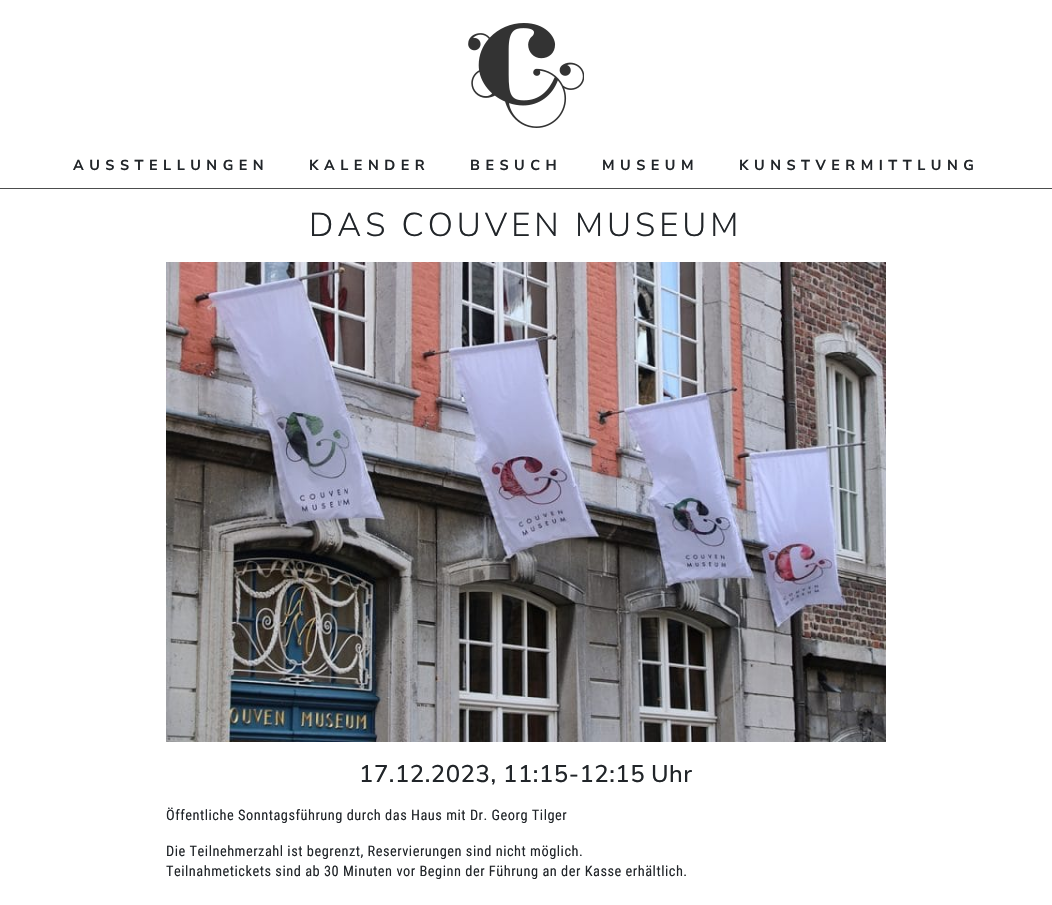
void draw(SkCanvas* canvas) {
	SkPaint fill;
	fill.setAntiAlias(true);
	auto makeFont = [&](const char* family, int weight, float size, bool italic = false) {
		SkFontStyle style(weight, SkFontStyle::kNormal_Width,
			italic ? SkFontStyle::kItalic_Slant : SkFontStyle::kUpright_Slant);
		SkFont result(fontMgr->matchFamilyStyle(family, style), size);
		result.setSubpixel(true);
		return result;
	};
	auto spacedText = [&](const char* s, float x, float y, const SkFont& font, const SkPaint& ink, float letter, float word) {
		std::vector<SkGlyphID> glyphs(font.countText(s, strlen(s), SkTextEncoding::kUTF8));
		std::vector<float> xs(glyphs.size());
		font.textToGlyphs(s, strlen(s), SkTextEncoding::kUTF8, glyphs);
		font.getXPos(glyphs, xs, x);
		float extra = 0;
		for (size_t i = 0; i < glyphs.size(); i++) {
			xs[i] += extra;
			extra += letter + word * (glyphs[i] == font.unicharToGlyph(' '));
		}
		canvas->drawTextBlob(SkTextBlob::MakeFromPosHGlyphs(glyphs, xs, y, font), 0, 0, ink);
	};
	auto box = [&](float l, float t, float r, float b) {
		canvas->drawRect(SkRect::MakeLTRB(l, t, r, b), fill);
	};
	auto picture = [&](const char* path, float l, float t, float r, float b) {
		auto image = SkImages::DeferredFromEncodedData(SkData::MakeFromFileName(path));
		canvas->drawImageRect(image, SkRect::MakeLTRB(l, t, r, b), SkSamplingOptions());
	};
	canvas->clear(0xFFFFFFFF);
	picture("image0.png", 468, 23, 584, 128);
	fill.setColor(0xFF4C4D4D);
	box(0, 188, 1052, 189);
	picture("image1.png", 166, 262, 886, 742);
	auto font1 = makeFont("Nunito Sans", 700, 14.4f);
	fill.setColor(0xFF212529);
	spacedText("AUSSTELLUNGEN", 73, 170, font1, fill, 5.5f, 0);
	spacedText("KALENDER", 309, 170, font1, fill, 5.5f, 0);
	spacedText("BESUCH", 470, 170, font1, fill, 5.5f, 0);
	spacedText("MUSEUM", 602, 170, font1, fill, 5.5f, 0);
	spacedText("KUNSTVERMITTLUNG", 739, 170, font1, fill, 5.5f, 0);
	auto font2 = makeFont("Nunito Sans", 300, 33.1f);
	spacedText("DAS COUVEN MUSEUM", 309, 236, font2, fill, 4, 0);
	auto font3 = makeFont("Nunito Sans", 500, 24);
	spacedText("17.12.2023,", 359, 782, font3, fill, 0.5f, 0);
	spacedText("11:15-12:15", 503, 782, font3, fill, 0.5f, 0);
	spacedText("Uhr", 651, 782, font3, fill, 0.5f, 0);
	auto font4 = makeFont("Roboto Condensed", 400, 14.4f);
	spacedText("Öffentliche Sonntagsführung durch das Haus mit Dr. Georg Tilger", 166, 820, font4, fill, 0.5f, 0);
	spacedText("Die Teilnehmerzahl ist begrenzt, Reservierungen sind nicht möglich.", 166, 856, font4, fill, 0.5f, 0);
	spacedText("Teilnahmetickets sind ab 30 Minuten vor Beginn der Führung an der Kasse erhältlich.", 166, 876, font4, fill, 0.5f, 0);
}
